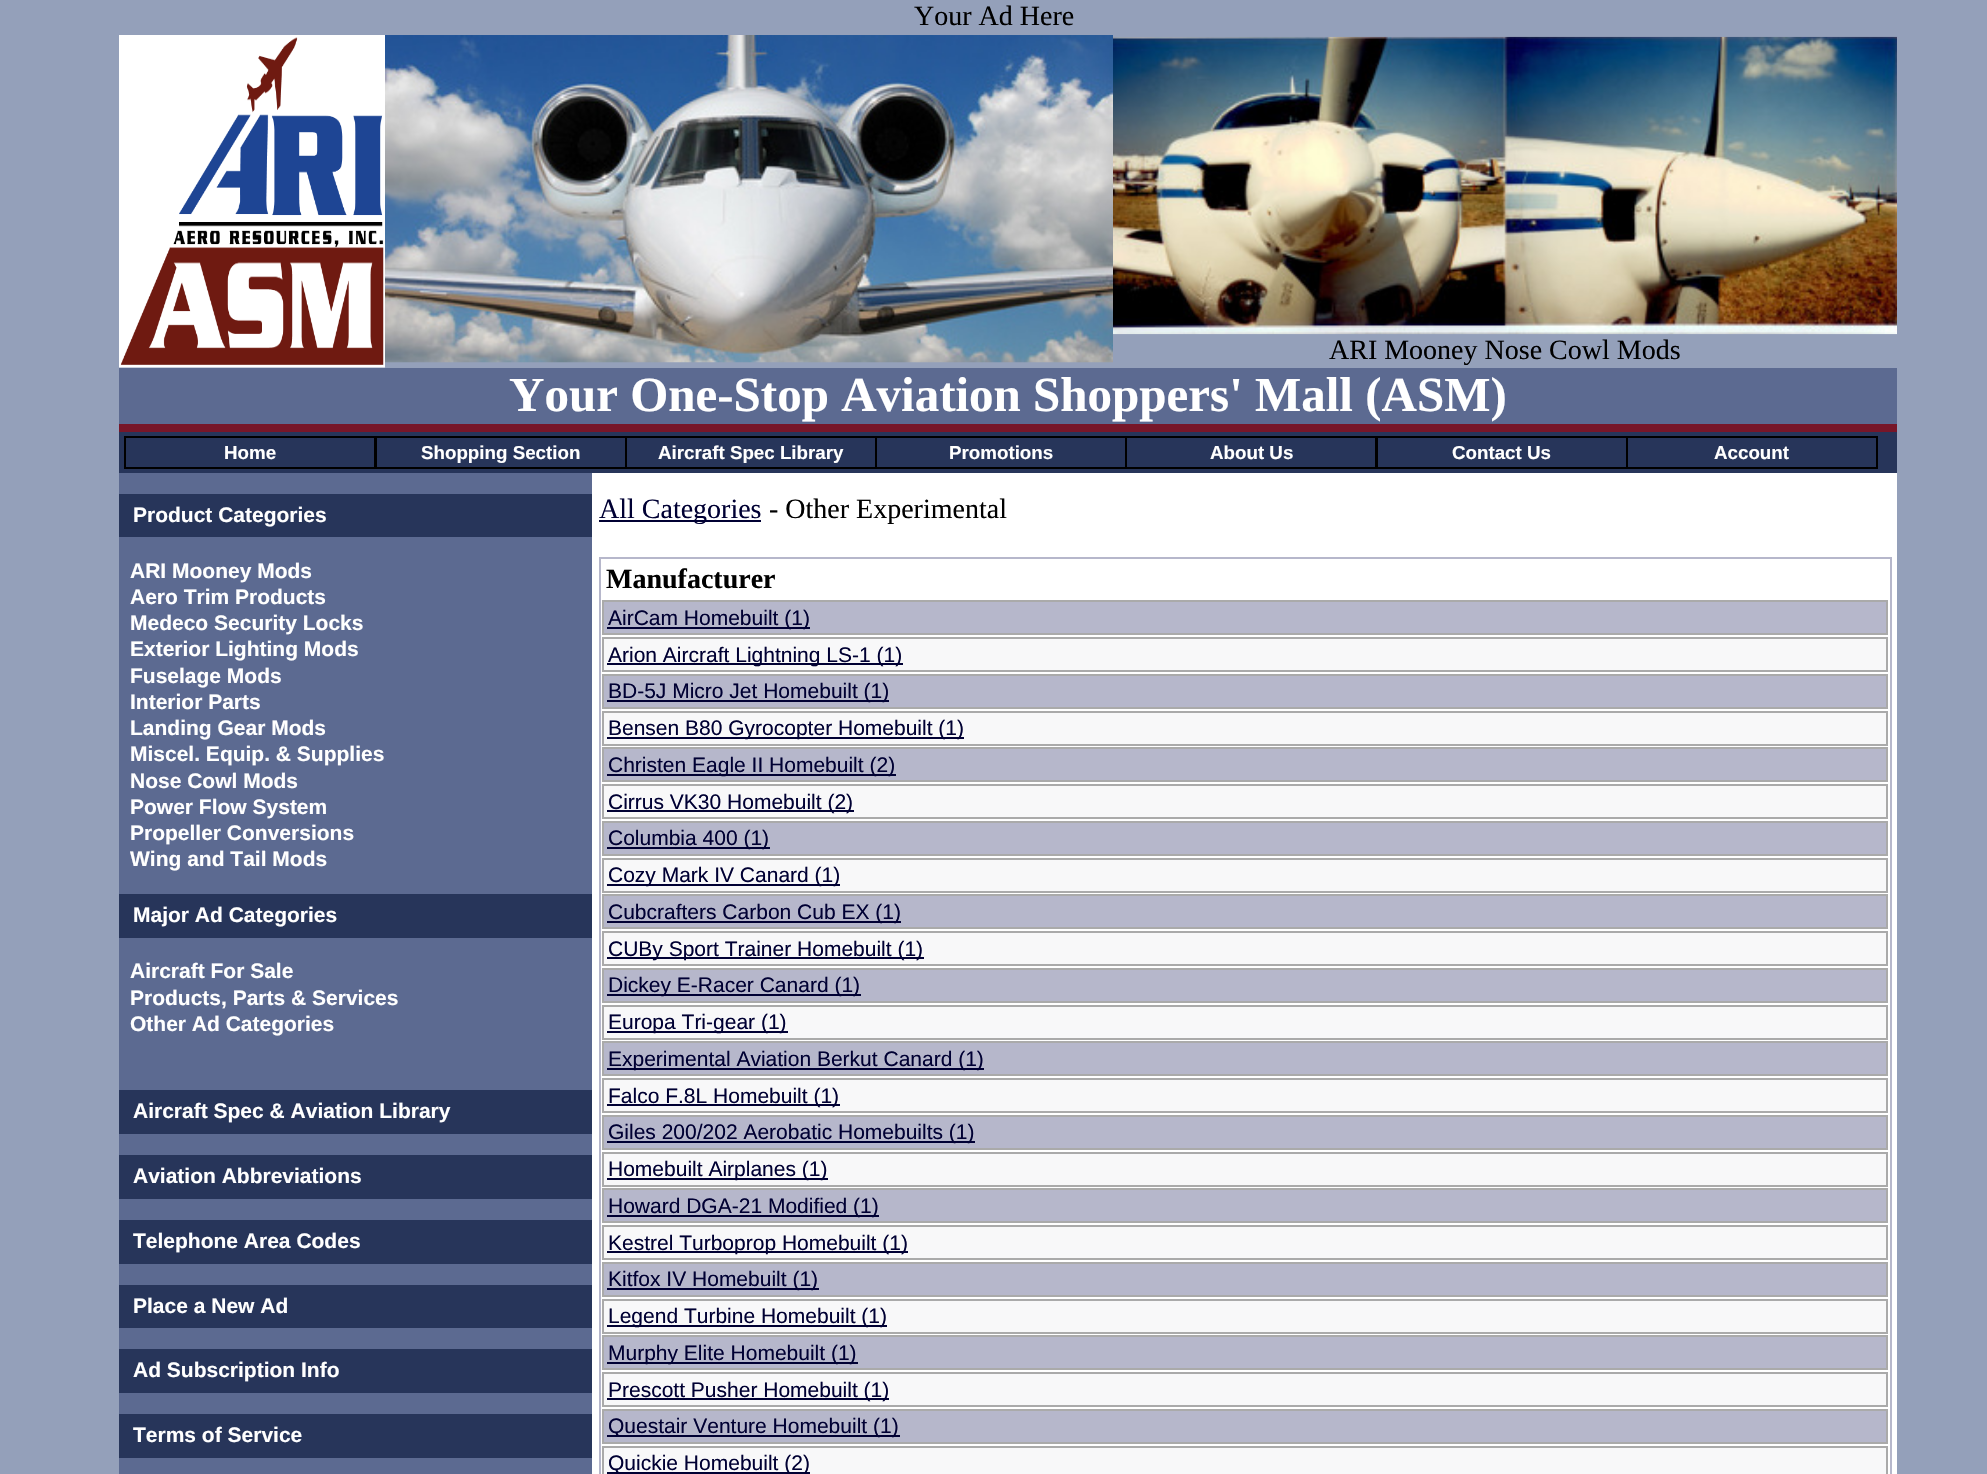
void draw(SkCanvas* canvas) {
	SkPaint fill;
	fill.setAntiAlias(true);
	auto makeFont = [&](const char* family, int weight, float size, bool italic = false) {
		SkFontStyle style(weight, SkFontStyle::kNormal_Width,
			italic ? SkFontStyle::kItalic_Slant : SkFontStyle::kUpright_Slant);
		SkFont result(fontMgr->matchFamilyStyle(family, style), size);
		result.setSubpixel(true);
		return result;
	};
	auto text = [&](const char* s, float x, float y, const SkFont& font) {
		canvas->drawString(s, x, y, font, fill);
	};
	auto box = [&](float l, float t, float r, float b) {
		canvas->drawRect(SkRect::MakeLTRB(l, t, r, b), fill);
	};
	auto picture = [&](const char* path, float l, float t, float r, float b) {
		auto image = SkImages::DeferredFromEncodedData(SkData::MakeFromFileName(path));
		canvas->drawImageRect(image, SkRect::MakeLTRB(l, t, r, b), SkSamplingOptions());
	};
	canvas->clear(0xFF94A0BA);
	picture("image0.png", 119, 35, 385, 368);
	picture("image1.png", 385, 35, 1113, 363);
	picture("image2.png", 1113, 36, 1897, 335);
	fill.setColor(0xFF5C6A91);
	box(119, 368, 1897, 424);
	fill.setColor(0xFF771629);
	box(119, 424, 1897, 432);
	fill.setColor(0xFF27355A);
	box(119, 432, 1897, 473);
	fill.setStyle(SkPaint::kStroke_Style);
	fill.setStrokeWidth(2);
	fill.setColor(0xFF000000);
	canvas->drawRect(SkRect::MakeLTRB(125, 437, 375, 468), fill);
	canvas->drawRect(SkRect::MakeLTRB(376, 437, 626, 468), fill);
	canvas->drawRect(SkRect::MakeLTRB(626, 437, 876, 468), fill);
	canvas->drawRect(SkRect::MakeLTRB(876, 437, 1126, 468), fill);
	canvas->drawRect(SkRect::MakeLTRB(1126, 437, 1376, 468), fill);
	canvas->drawRect(SkRect::MakeLTRB(1377, 437, 1627, 468), fill);
	canvas->drawRect(SkRect::MakeLTRB(1627, 437, 1877, 468), fill);
	fill.setStyle(SkPaint::kFill_Style);
	fill.setColor(0xFF5C6A91);
	box(119, 473, 592, 1474);
	fill.setColor(0xFF27355A);
	box(119, 494, 592, 537);
	box(119, 894, 592, 938);
	box(119, 1090, 592, 1134);
	box(119, 1155, 592, 1199);
	box(119, 1220, 592, 1264);
	box(119, 1285, 592, 1328);
	box(119, 1349, 592, 1393);
	box(119, 1414, 592, 1458);
	fill.setColor(0xFFFFFFFF);
	box(592, 473, 1897, 1474);
	fill.setColor(0xFF000033);
	box(599, 520, 761, 522);
	fill.setStyle(SkPaint::kStroke_Style);
	fill.setColor(0xFFB6B7CB);
	canvas->drawRect(SkRect::MakeLTRB(600, 558, 1891, 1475), fill);
	fill.setStyle(SkPaint::kFill_Style);
	canvas->drawRect(SkRect::MakeLTRB(603, 601, 1887, 634), fill);
	fill.setStyle(SkPaint::kStroke_Style);
	fill.setColor(0xFFAAAAAA);
	canvas->drawRect(SkRect::MakeLTRB(603, 601, 1887, 634), fill);
	fill.setStyle(SkPaint::kFill_Style);
	fill.setColor(0xFF000033);
	box(607, 627, 810, 629);
	fill.setColor(0xFFF8F8F9);
	canvas->drawRect(SkRect::MakeLTRB(603, 638, 1887, 671), fill);
	fill.setStyle(SkPaint::kStroke_Style);
	fill.setColor(0xFFAAAAAA);
	canvas->drawRect(SkRect::MakeLTRB(603, 638, 1887, 671), fill);
	fill.setStyle(SkPaint::kFill_Style);
	fill.setColor(0xFF000033);
	box(607, 663, 903, 665);
	fill.setColor(0xFFB6B7CB);
	canvas->drawRect(SkRect::MakeLTRB(603, 675, 1887, 708), fill);
	fill.setStyle(SkPaint::kStroke_Style);
	fill.setColor(0xFFAAAAAA);
	canvas->drawRect(SkRect::MakeLTRB(603, 675, 1887, 708), fill);
	fill.setStyle(SkPaint::kFill_Style);
	fill.setColor(0xFF000033);
	box(607, 700, 889, 702);
	fill.setColor(0xFFF8F8F9);
	canvas->drawRect(SkRect::MakeLTRB(603, 712, 1887, 745), fill);
	fill.setStyle(SkPaint::kStroke_Style);
	fill.setColor(0xFFAAAAAA);
	canvas->drawRect(SkRect::MakeLTRB(603, 712, 1887, 745), fill);
	fill.setStyle(SkPaint::kFill_Style);
	fill.setColor(0xFF000033);
	box(607, 737, 964, 739);
	fill.setColor(0xFFB6B7CB);
	canvas->drawRect(SkRect::MakeLTRB(603, 748, 1887, 781), fill);
	fill.setStyle(SkPaint::kStroke_Style);
	fill.setColor(0xFFAAAAAA);
	canvas->drawRect(SkRect::MakeLTRB(603, 748, 1887, 781), fill);
	fill.setStyle(SkPaint::kFill_Style);
	fill.setColor(0xFF000033);
	box(607, 774, 896, 776);
	fill.setColor(0xFFF8F8F9);
	canvas->drawRect(SkRect::MakeLTRB(603, 785, 1887, 818), fill);
	fill.setStyle(SkPaint::kStroke_Style);
	fill.setColor(0xFFAAAAAA);
	canvas->drawRect(SkRect::MakeLTRB(603, 785, 1887, 818), fill);
	fill.setStyle(SkPaint::kFill_Style);
	fill.setColor(0xFF000033);
	box(607, 810, 854, 812);
	fill.setColor(0xFFB6B7CB);
	canvas->drawRect(SkRect::MakeLTRB(603, 822, 1887, 855), fill);
	fill.setStyle(SkPaint::kStroke_Style);
	fill.setColor(0xFFAAAAAA);
	canvas->drawRect(SkRect::MakeLTRB(603, 822, 1887, 855), fill);
	fill.setStyle(SkPaint::kFill_Style);
	fill.setColor(0xFF000033);
	box(607, 847, 770, 849);
	fill.setColor(0xFFF8F8F9);
	canvas->drawRect(SkRect::MakeLTRB(603, 859, 1887, 892), fill);
	fill.setStyle(SkPaint::kStroke_Style);
	fill.setColor(0xFFAAAAAA);
	canvas->drawRect(SkRect::MakeLTRB(603, 859, 1887, 892), fill);
	fill.setStyle(SkPaint::kFill_Style);
	fill.setColor(0xFF000033);
	box(607, 884, 840, 886);
	fill.setColor(0xFFB6B7CB);
	canvas->drawRect(SkRect::MakeLTRB(603, 895, 1887, 928), fill);
	fill.setStyle(SkPaint::kStroke_Style);
	fill.setColor(0xFFAAAAAA);
	canvas->drawRect(SkRect::MakeLTRB(603, 895, 1887, 928), fill);
	fill.setStyle(SkPaint::kFill_Style);
	fill.setColor(0xFF000033);
	box(607, 921, 901, 923);
	fill.setColor(0xFFF8F8F9);
	canvas->drawRect(SkRect::MakeLTRB(603, 932, 1887, 965), fill);
	fill.setStyle(SkPaint::kStroke_Style);
	fill.setColor(0xFFAAAAAA);
	canvas->drawRect(SkRect::MakeLTRB(603, 932, 1887, 965), fill);
	fill.setStyle(SkPaint::kFill_Style);
	fill.setColor(0xFF000033);
	box(607, 957, 924, 959);
	fill.setColor(0xFFB6B7CB);
	canvas->drawRect(SkRect::MakeLTRB(603, 969, 1887, 1002), fill);
	fill.setStyle(SkPaint::kStroke_Style);
	fill.setColor(0xFFAAAAAA);
	canvas->drawRect(SkRect::MakeLTRB(603, 969, 1887, 1002), fill);
	fill.setStyle(SkPaint::kFill_Style);
	fill.setColor(0xFF000033);
	box(607, 994, 861, 996);
	fill.setColor(0xFFF8F8F9);
	canvas->drawRect(SkRect::MakeLTRB(603, 1006, 1887, 1039), fill);
	fill.setStyle(SkPaint::kStroke_Style);
	fill.setColor(0xFFAAAAAA);
	canvas->drawRect(SkRect::MakeLTRB(603, 1006, 1887, 1039), fill);
	fill.setStyle(SkPaint::kFill_Style);
	fill.setColor(0xFF000033);
	box(607, 1031, 788, 1033);
	fill.setColor(0xFFB6B7CB);
	canvas->drawRect(SkRect::MakeLTRB(603, 1042, 1887, 1075), fill);
	fill.setStyle(SkPaint::kStroke_Style);
	fill.setColor(0xFFAAAAAA);
	canvas->drawRect(SkRect::MakeLTRB(603, 1042, 1887, 1075), fill);
	fill.setStyle(SkPaint::kFill_Style);
	fill.setColor(0xFF000033);
	box(607, 1068, 984, 1070);
	fill.setColor(0xFFF8F8F9);
	canvas->drawRect(SkRect::MakeLTRB(603, 1079, 1887, 1112), fill);
	fill.setStyle(SkPaint::kStroke_Style);
	fill.setColor(0xFFAAAAAA);
	canvas->drawRect(SkRect::MakeLTRB(603, 1079, 1887, 1112), fill);
	fill.setStyle(SkPaint::kFill_Style);
	fill.setColor(0xFF000033);
	box(607, 1104, 840, 1106);
	fill.setColor(0xFFB6B7CB);
	canvas->drawRect(SkRect::MakeLTRB(603, 1116, 1887, 1149), fill);
	fill.setStyle(SkPaint::kStroke_Style);
	fill.setColor(0xFFAAAAAA);
	canvas->drawRect(SkRect::MakeLTRB(603, 1116, 1887, 1149), fill);
	fill.setStyle(SkPaint::kFill_Style);
	fill.setColor(0xFF000033);
	box(607, 1141, 975, 1143);
	fill.setColor(0xFFF8F8F9);
	canvas->drawRect(SkRect::MakeLTRB(603, 1153, 1887, 1186), fill);
	fill.setStyle(SkPaint::kStroke_Style);
	fill.setColor(0xFFAAAAAA);
	canvas->drawRect(SkRect::MakeLTRB(603, 1153, 1887, 1186), fill);
	fill.setStyle(SkPaint::kFill_Style);
	fill.setColor(0xFF000033);
	box(607, 1178, 828, 1180);
	fill.setColor(0xFFB6B7CB);
	canvas->drawRect(SkRect::MakeLTRB(603, 1189, 1887, 1222), fill);
	fill.setStyle(SkPaint::kStroke_Style);
	fill.setColor(0xFFAAAAAA);
	canvas->drawRect(SkRect::MakeLTRB(603, 1189, 1887, 1222), fill);
	fill.setStyle(SkPaint::kFill_Style);
	fill.setColor(0xFF000033);
	box(607, 1215, 879, 1217);
	fill.setColor(0xFFF8F8F9);
	canvas->drawRect(SkRect::MakeLTRB(603, 1226, 1887, 1259), fill);
	fill.setStyle(SkPaint::kStroke_Style);
	fill.setColor(0xFFAAAAAA);
	canvas->drawRect(SkRect::MakeLTRB(603, 1226, 1887, 1259), fill);
	fill.setStyle(SkPaint::kFill_Style);
	fill.setColor(0xFF000033);
	box(607, 1251, 908, 1253);
	fill.setColor(0xFFB6B7CB);
	canvas->drawRect(SkRect::MakeLTRB(603, 1263, 1887, 1296), fill);
	fill.setStyle(SkPaint::kStroke_Style);
	fill.setColor(0xFFAAAAAA);
	canvas->drawRect(SkRect::MakeLTRB(603, 1263, 1887, 1296), fill);
	fill.setStyle(SkPaint::kFill_Style);
	fill.setColor(0xFF000033);
	box(607, 1288, 819, 1290);
	fill.setColor(0xFFF8F8F9);
	canvas->drawRect(SkRect::MakeLTRB(603, 1300, 1887, 1333), fill);
	fill.setStyle(SkPaint::kStroke_Style);
	fill.setColor(0xFFAAAAAA);
	canvas->drawRect(SkRect::MakeLTRB(603, 1300, 1887, 1333), fill);
	fill.setStyle(SkPaint::kFill_Style);
	fill.setColor(0xFF000033);
	box(607, 1325, 887, 1327);
	fill.setColor(0xFFB6B7CB);
	canvas->drawRect(SkRect::MakeLTRB(603, 1336, 1887, 1369), fill);
	fill.setStyle(SkPaint::kStroke_Style);
	fill.setColor(0xFFAAAAAA);
	canvas->drawRect(SkRect::MakeLTRB(603, 1336, 1887, 1369), fill);
	fill.setStyle(SkPaint::kFill_Style);
	fill.setColor(0xFF000033);
	box(607, 1362, 858, 1364);
	fill.setColor(0xFFF8F8F9);
	canvas->drawRect(SkRect::MakeLTRB(603, 1373, 1887, 1406), fill);
	fill.setStyle(SkPaint::kStroke_Style);
	fill.setColor(0xFFAAAAAA);
	canvas->drawRect(SkRect::MakeLTRB(603, 1373, 1887, 1406), fill);
	fill.setStyle(SkPaint::kFill_Style);
	fill.setColor(0xFF000033);
	box(607, 1398, 889, 1400);
	fill.setColor(0xFFB6B7CB);
	canvas->drawRect(SkRect::MakeLTRB(603, 1410, 1887, 1443), fill);
	fill.setStyle(SkPaint::kStroke_Style);
	fill.setColor(0xFFAAAAAA);
	canvas->drawRect(SkRect::MakeLTRB(603, 1410, 1887, 1443), fill);
	fill.setStyle(SkPaint::kFill_Style);
	fill.setColor(0xFF000033);
	box(607, 1435, 900, 1437);
	fill.setColor(0xFFF8F8F9);
	canvas->drawRect(SkRect::MakeLTRB(603, 1447, 1887, 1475), fill);
	fill.setStyle(SkPaint::kStroke_Style);
	fill.setColor(0xFFAAAAAA);
	canvas->drawRect(SkRect::MakeLTRB(603, 1447, 1887, 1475), fill);
	fill.setStyle(SkPaint::kFill_Style);
	fill.setColor(0xFF000033);
	box(607, 1472, 810, 1474);
	auto font1 = makeFont("Liberation Serif", 400, 28);
	fill.setColor(0xFF000000);
	text("Your Ad Here", 914, 25, font1);
	text("ARI Mooney Nose Cowl Mods", 1329, 359, font1);
	auto font2 = makeFont("Liberation Serif", 700, 49);
	fill.setColor(0xFFFFFFFF);
	text("Your One-Stop Aviation Shoppers' Mall (ASM)", 509, 411, font2);
	auto font3 = makeFont("Liberation Sans", 700, 18.75f);
	text("Home", 224, 459, font3);
	text("Shopping Section", 421, 459, font3);
	text("Aircraft Spec Library", 658, 459, font3);
	text("Promotions", 949, 459, font3);
	text("About Us", 1210, 459, font3);
	text("Contact Us", 1452, 459, font3);
	text("Account", 1714, 459, font3);
	auto font4 = makeFont("Liberation Sans", 700, 21);
	text("Product Categories", 133, 522, font4);
	text("ARI Mooney Mods", 130, 578, font4);
	text("Aero Trim Products", 130, 604, font4);
	text("Medeco Security Locks", 130, 630, font4);
	text("Exterior Lighting Mods", 130, 656, font4);
	text("Fuselage Mods", 130, 683, font4);
	text("Interior Parts", 130, 709, font4);
	text("Landing Gear Mods", 130, 735, font4);
	text("Miscel. Equip. & Supplies", 130, 761, font4);
	text("Nose Cowl Mods", 130, 788, font4);
	text("Power Flow System", 130, 814, font4);
	text("Propeller Conversions", 130, 840, font4);
	text("Wing and Tail Mods", 130, 866, font4);
	text("Major Ad Categories", 133, 922, font4);
	text("Aircraft For Sale", 130, 978, font4);
	text("Products, Parts & Services", 130, 1005, font4);
	text("Other Ad Categories", 130, 1031, font4);
	text("Aircraft Spec & Aviation Library", 133, 1118, font4);
	text("Aviation Abbreviations", 133, 1183, font4);
	text("Telephone Area Codes", 133, 1248, font4);
	text("Place a New Ad", 133, 1313, font4);
	text("Ad Subscription Info", 133, 1377, font4);
	text("Terms of Service", 133, 1442, font4);
	fill.setColor(0xFF000033);
	text("All Categories", 599, 518, font1);
	fill.setColor(0xFF000000);
	text("- Other Experimental", 769, 518, font1);
	auto font5 = makeFont("Liberation Serif", 700, 28);
	text("Manufacturer", 606, 588, font5);
	auto font6 = makeFont("Liberation Sans", 400, 21);
	fill.setColor(0xFF000033);
	text("AirCam Homebuilt (1)", 608, 625, font6);
	text("Arion Aircraft Lightning LS-1 (1)", 608, 662, font6);
	text("BD-5J Micro Jet Homebuilt (1)", 608, 698, font6);
	text("Bensen B80 Gyrocopter Homebuilt (1)", 608, 735, font6);
	text("Christen Eagle II Homebuilt (2)", 608, 772, font6);
	text("Cirrus VK30 Homebuilt (2)", 608, 809, font6);
	text("Columbia 400 (1)", 608, 845, font6);
	text("Cozy Mark IV Canard (1)", 608, 882, font6);
	text("Cubcrafters Carbon Cub EX (1)", 608, 919, font6);
	text("CUBy Sport Trainer Homebuilt (1)", 608, 956, font6);
	text("Dickey E-Racer Canard (1)", 608, 992, font6);
	text("Europa Tri-gear (1)", 608, 1029, font6);
	text("Experimental Aviation Berkut Canard (1)", 608, 1066, font6);
	text("Falco F.8L Homebuilt (1)", 608, 1103, font6);
	text("Giles 200/202 Aerobatic Homebuilts (1)", 608, 1139, font6);
	text("Homebuilt Airplanes (1)", 608, 1176, font6);
	text("Howard DGA-21 Modified (1)", 608, 1213, font6);
	text("Kestrel Turboprop Homebuilt (1)", 608, 1250, font6);
	text("Kitfox IV Homebuilt (1)", 608, 1286, font6);
	text("Legend Turbine Homebuilt (1)", 608, 1323, font6);
	text("Murphy Elite Homebuilt (1)", 608, 1360, font6);
	text("Prescott Pusher Homebuilt (1)", 608, 1397, font6);
	text("Questair Venture Homebuilt (1)", 608, 1433, font6);
	text("Quickie Homebuilt (2)", 608, 1470, font6);
}
